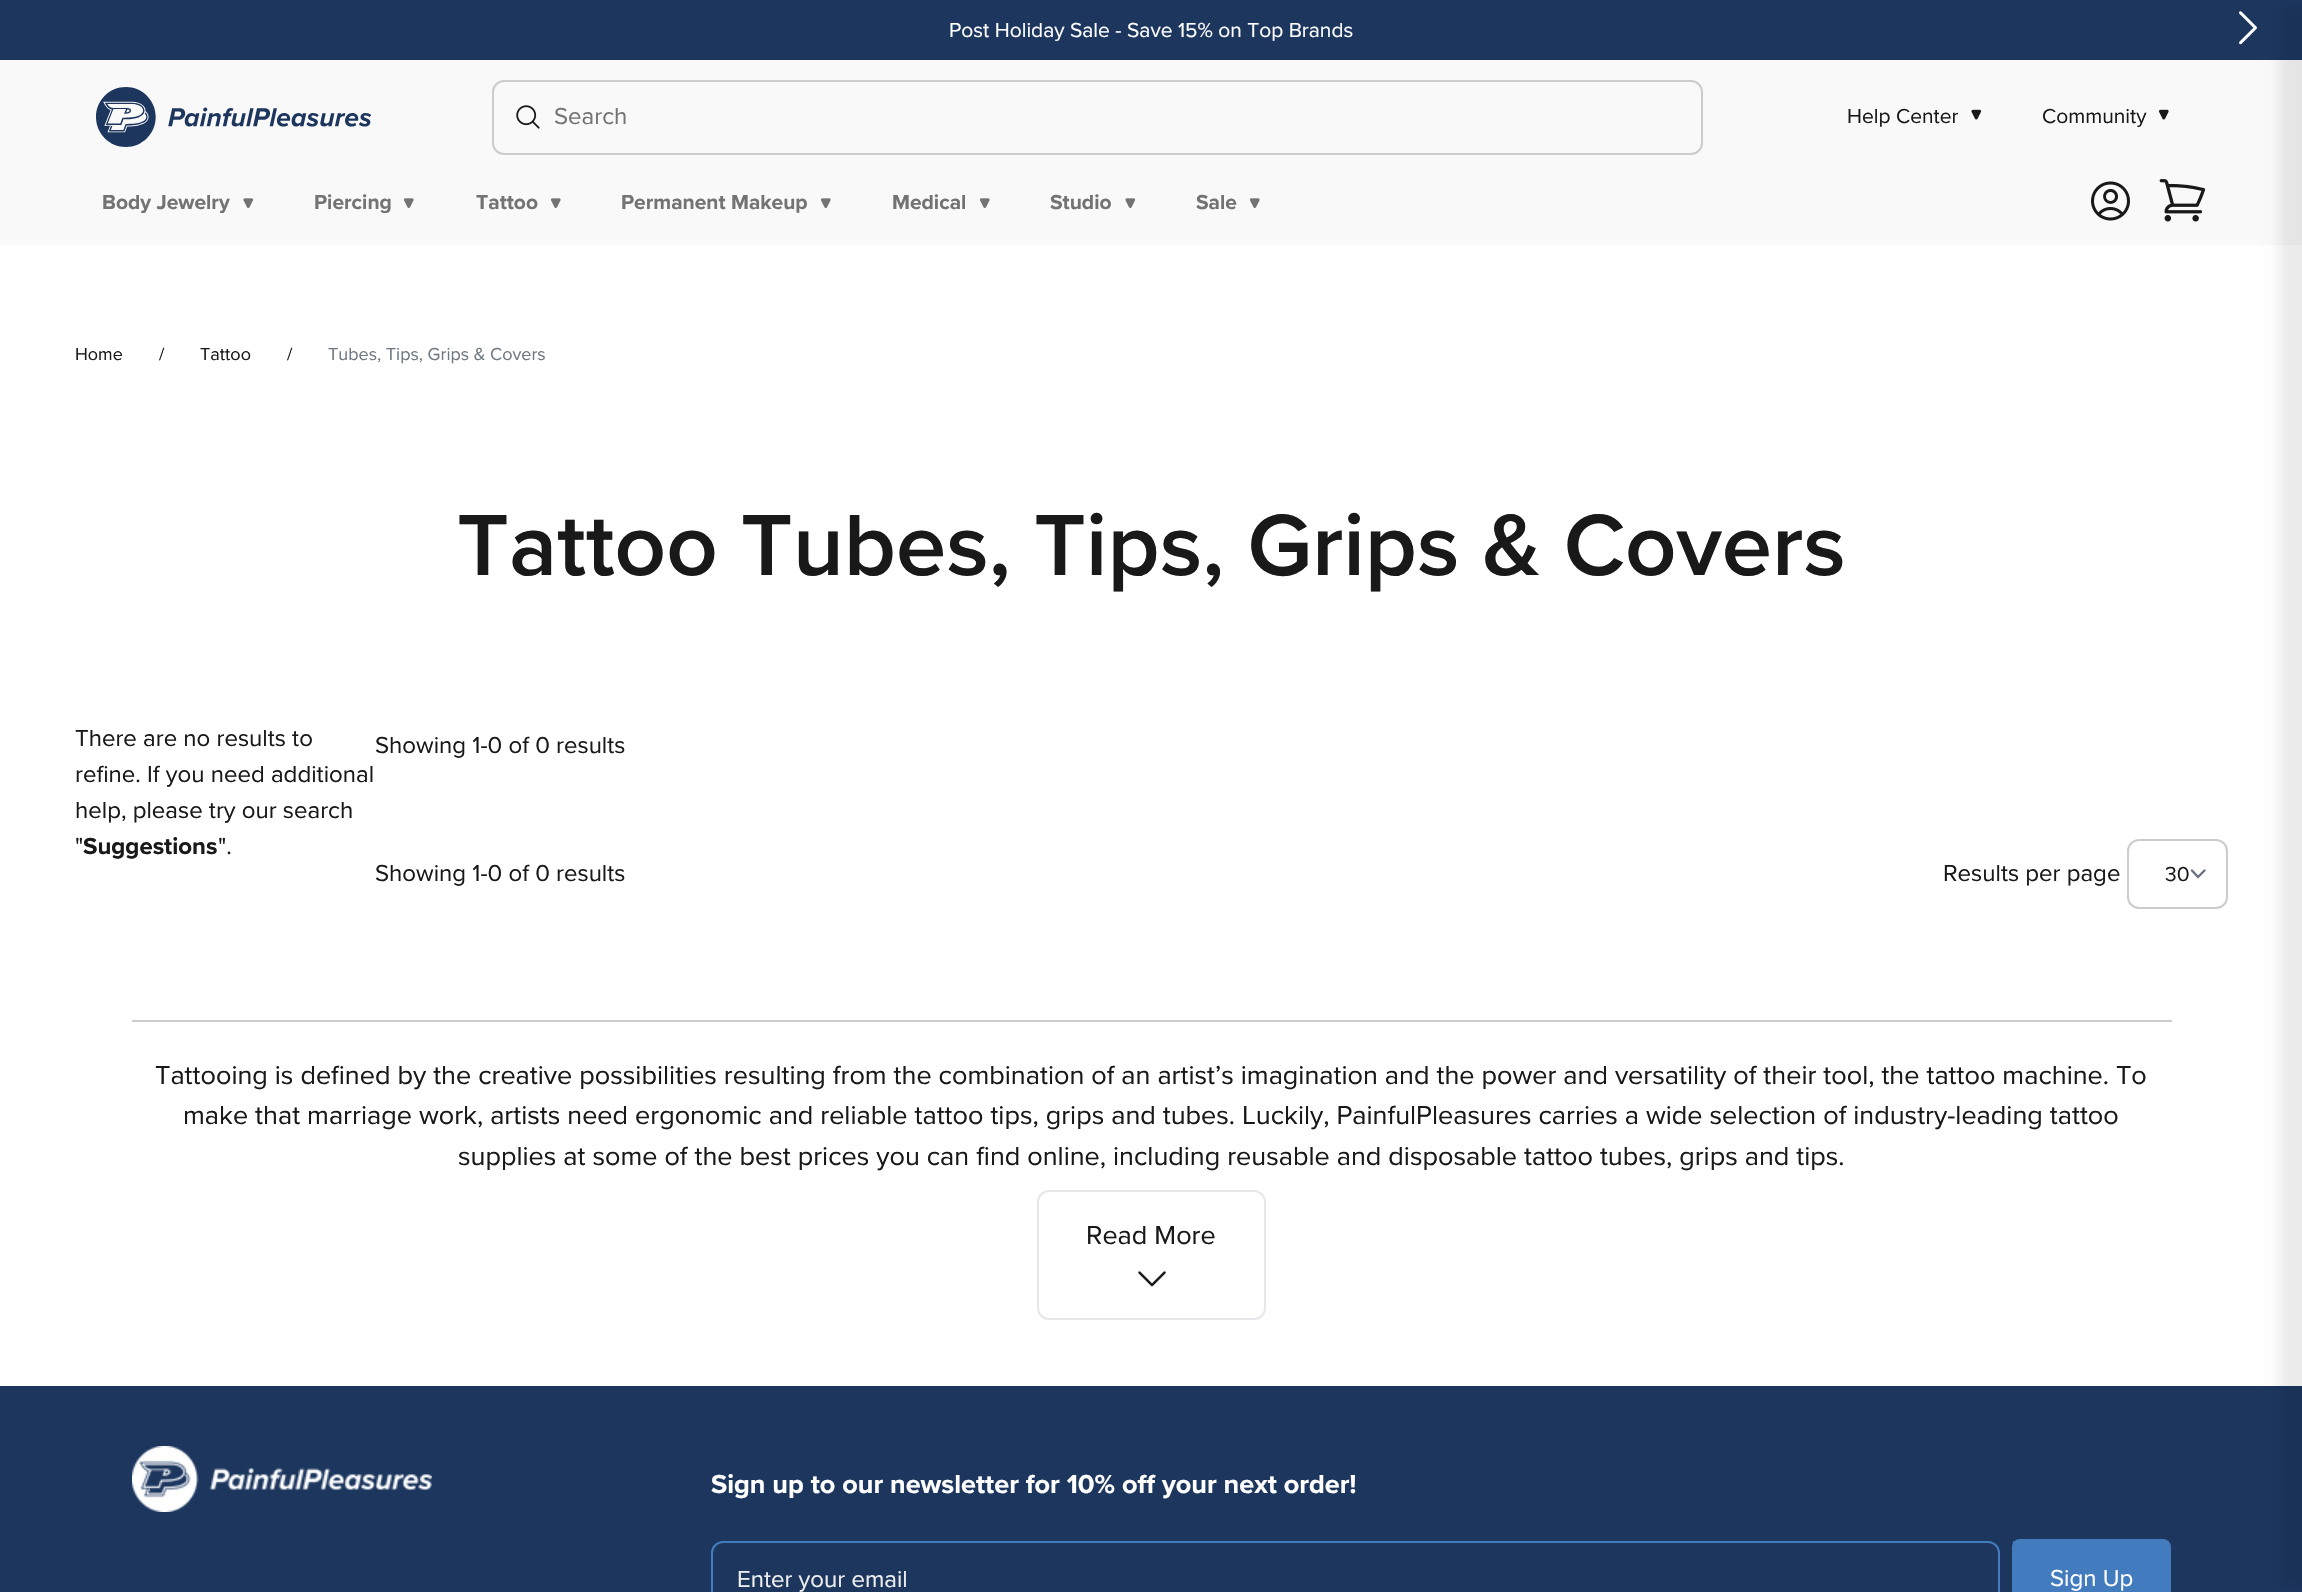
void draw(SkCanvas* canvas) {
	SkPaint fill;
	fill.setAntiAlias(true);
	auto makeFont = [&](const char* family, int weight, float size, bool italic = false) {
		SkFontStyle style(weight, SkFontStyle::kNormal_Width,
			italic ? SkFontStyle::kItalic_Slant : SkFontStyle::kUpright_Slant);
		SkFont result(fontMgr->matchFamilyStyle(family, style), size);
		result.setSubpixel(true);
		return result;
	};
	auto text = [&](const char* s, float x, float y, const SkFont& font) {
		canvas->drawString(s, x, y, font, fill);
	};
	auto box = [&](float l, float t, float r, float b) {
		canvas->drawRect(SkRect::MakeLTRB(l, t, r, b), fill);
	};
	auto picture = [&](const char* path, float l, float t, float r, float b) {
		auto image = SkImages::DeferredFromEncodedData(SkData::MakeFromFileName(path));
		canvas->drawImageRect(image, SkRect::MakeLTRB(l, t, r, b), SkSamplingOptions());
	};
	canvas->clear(0xFFFFFFFF);
	fill.setColor(0xFF1C365E);
	box(0, 0, 2302, 60);
	picture("image0.png", 2239, 11, 2257, 45);
	fill.setColor(0xFFF9F9F9);
	box(0, 60, 2302, 245);
	fill.setColor(0xFF1C365E);
	box(0, 1386, 2302, 1592);
	fill.setColor(0x14000000);
	fill.setMaskFilter(SkMaskFilter::MakeBlur(kNormal_SkBlurStyle, 6));
	canvas->drawRect(SkRect::MakeLTRB(2279, 6, 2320, 1587), fill);
	fill.setMaskFilter(nullptr);
	picture("image1.png", 96, 87, 371, 147);
	fill.setStyle(SkPaint::kStroke_Style);
	fill.setStrokeWidth(2);
	fill.setColor(0xFFCCCCCC);
	canvas->drawRoundRect(SkRect::MakeLTRB(493, 81, 1702, 154), 11, 11, fill);
	picture("image2.png", 516, 105, 540, 129);
	picture("image3.png", 1971, 109, 1982, 120);
	picture("image4.png", 2158, 109, 2169, 120);
	picture("image5.png", 243, 198, 254, 208);
	picture("image6.png", 403, 198, 414, 208);
	picture("image6.png", 550, 198, 561, 208);
	picture("image6.png", 820, 198, 831, 208);
	picture("image6.png", 979, 198, 990, 208);
	picture("image5.png", 1125, 198, 1136, 208);
	picture("image6.png", 1249, 198, 1260, 208);
	picture("image7.png", 2091, 181, 2130, 221);
	picture("image8.png", 2159, 179, 2206, 222);
	fill.setStrokeWidth(2.4f);
	fill.setStrokeCap(SkPaint::kRound_Cap);
	fill.setStrokeJoin(SkPaint::kRound_Join);
	fill.setColor(0xFF6B7280);
	canvas->drawPath(SkPathBuilder().moveTo(2192, 870.5f).lineTo(2198, 877).lineTo(2204.5f, 870.5f).detach(), fill);
	fill.setStrokeWidth(2);
	fill.setStrokeCap(SkPaint::kButt_Cap);
	fill.setStrokeJoin(SkPaint::kMiter_Join);
	fill.setColor(0xFFCCCCCC);
	canvas->drawRoundRect(SkRect::MakeLTRB(2128, 840, 2227, 908), 11, 11, fill);
	fill.setStyle(SkPaint::kFill_Style);
	box(132, 1020, 2172, 1022);
	fill.setStyle(SkPaint::kStroke_Style);
	fill.setColor(0xFFE5E7EB);
	canvas->drawRoundRect(SkRect::MakeLTRB(1038, 1191, 1265, 1319), 11, 11, fill);
	picture("image9.png", 1138, 1271, 1166, 1287);
	picture("image10.png", 132, 1446, 432, 1512);
	fill.setColor(0xFF437BBF);
	canvas->drawRoundRect(SkRect::MakeLTRB(712, 1542, 1999, 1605), 11, 11, fill);
	canvas->drawRoundRect(SkRect::MakeLTRB(2013, 1540, 2170, 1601), 7, 7, fill);
	fill.setStyle(SkPaint::kFill_Style);
	box(2013, 1541, 2169, 1592);
	auto font1 = makeFont("Proxima Nova", 400, 21);
	fill.setColor(0xFFFFFFFF);
	text("Post Holiday Sale - Save 15% on Top Brands", 949, 37, font1);
	auto font2 = makeFont("Proxima Nova", 400, 24);
	fill.setColor(0xFF737373);
	text("Search", 554, 124, font2);
	fill.setColor(0xFF191919);
	text("Help Center", 1847, 123, font1);
	text("Community", 2042, 123, font1);
	auto font3 = makeFont("Proxima Nova", 700, 21);
	fill.setColor(0xFF737373);
	text("Body Jewelry", 102, 209, font3);
	text("Piercing", 314, 209, font3);
	text("Tattoo", 476, 209, font3);
	text("Permanent Makeup", 621, 209, font3);
	text("Medical", 892, 209, font3);
	text("Studio", 1050, 209, font3);
	text("Sale", 1196, 209, font3);
	auto font4 = makeFont("Proxima Nova", 400, 18);
	fill.setColor(0xFF191919);
	text("Home", 75, 360, font4);
	text("/", 159, 360, font4);
	text("Tattoo", 200, 360, font4);
	text("/", 287, 360, font4);
	fill.setColor(0xFF6E7881);
	text("Tubes, Tips, Grips & Covers", 328, 360, font4);
	auto font5 = makeFont("Proxima Nova", 600, 90);
	fill.setColor(0xFF191919);
	text("Tattoo Tubes, Tips, Grips & Covers", 457, 575, font5);
	text("There are no results to", 75, 746, font2);
	text("refine. If you need additional", 75, 782, font2);
	text("help, please try our search", 75, 818, font2);
	text("\"", 75, 854, font2);
	auto font6 = makeFont("Proxima Nova", 700, 24);
	text("Suggestions", 83, 854, font6);
	text("\".", 218, 854, font2);
	text("Showing 1-0 of 0 results", 375, 753, font2);
	text("Showing 1-0 of 0 results", 375, 881, font2);
	text("Results per page", 1943, 881, font2);
	text("30", 2165, 881, font1);
	auto font7 = makeFont("Proxima Nova", 400, 27);
	text("Tattooing is defined by the creative possibilities resulting from the combination of an artist’s imagination and the power and versatility of their tool, the tattoo machine. To", 155, 1084, font7);
	text("make that marriage work, artists need ergonomic and reliable tattoo tips, grips and tubes. Luckily, PainfulPleasures carries a wide selection of industry-leading tattoo", 183, 1124, font7);
	text("supplies at some of the best prices you can find online, including reusable and disposable tattoo tubes, grips and tips.", 458, 1165, font7);
	text("Read More", 1086, 1244, font7);
	auto font8 = makeFont("Proxima Nova", 700, 27);
	fill.setColor(0xFFFFFFFF);
	text("Sign up to our newsletter for 10% off your next order!", 711, 1493, font8);
	fill.setColor(0xFFEEEEEE);
	text("Enter your email", 737, 1587, font2);
	fill.setColor(0xFFFFFFFF);
	text("Sign Up", 2050, 1586, font2);
}
